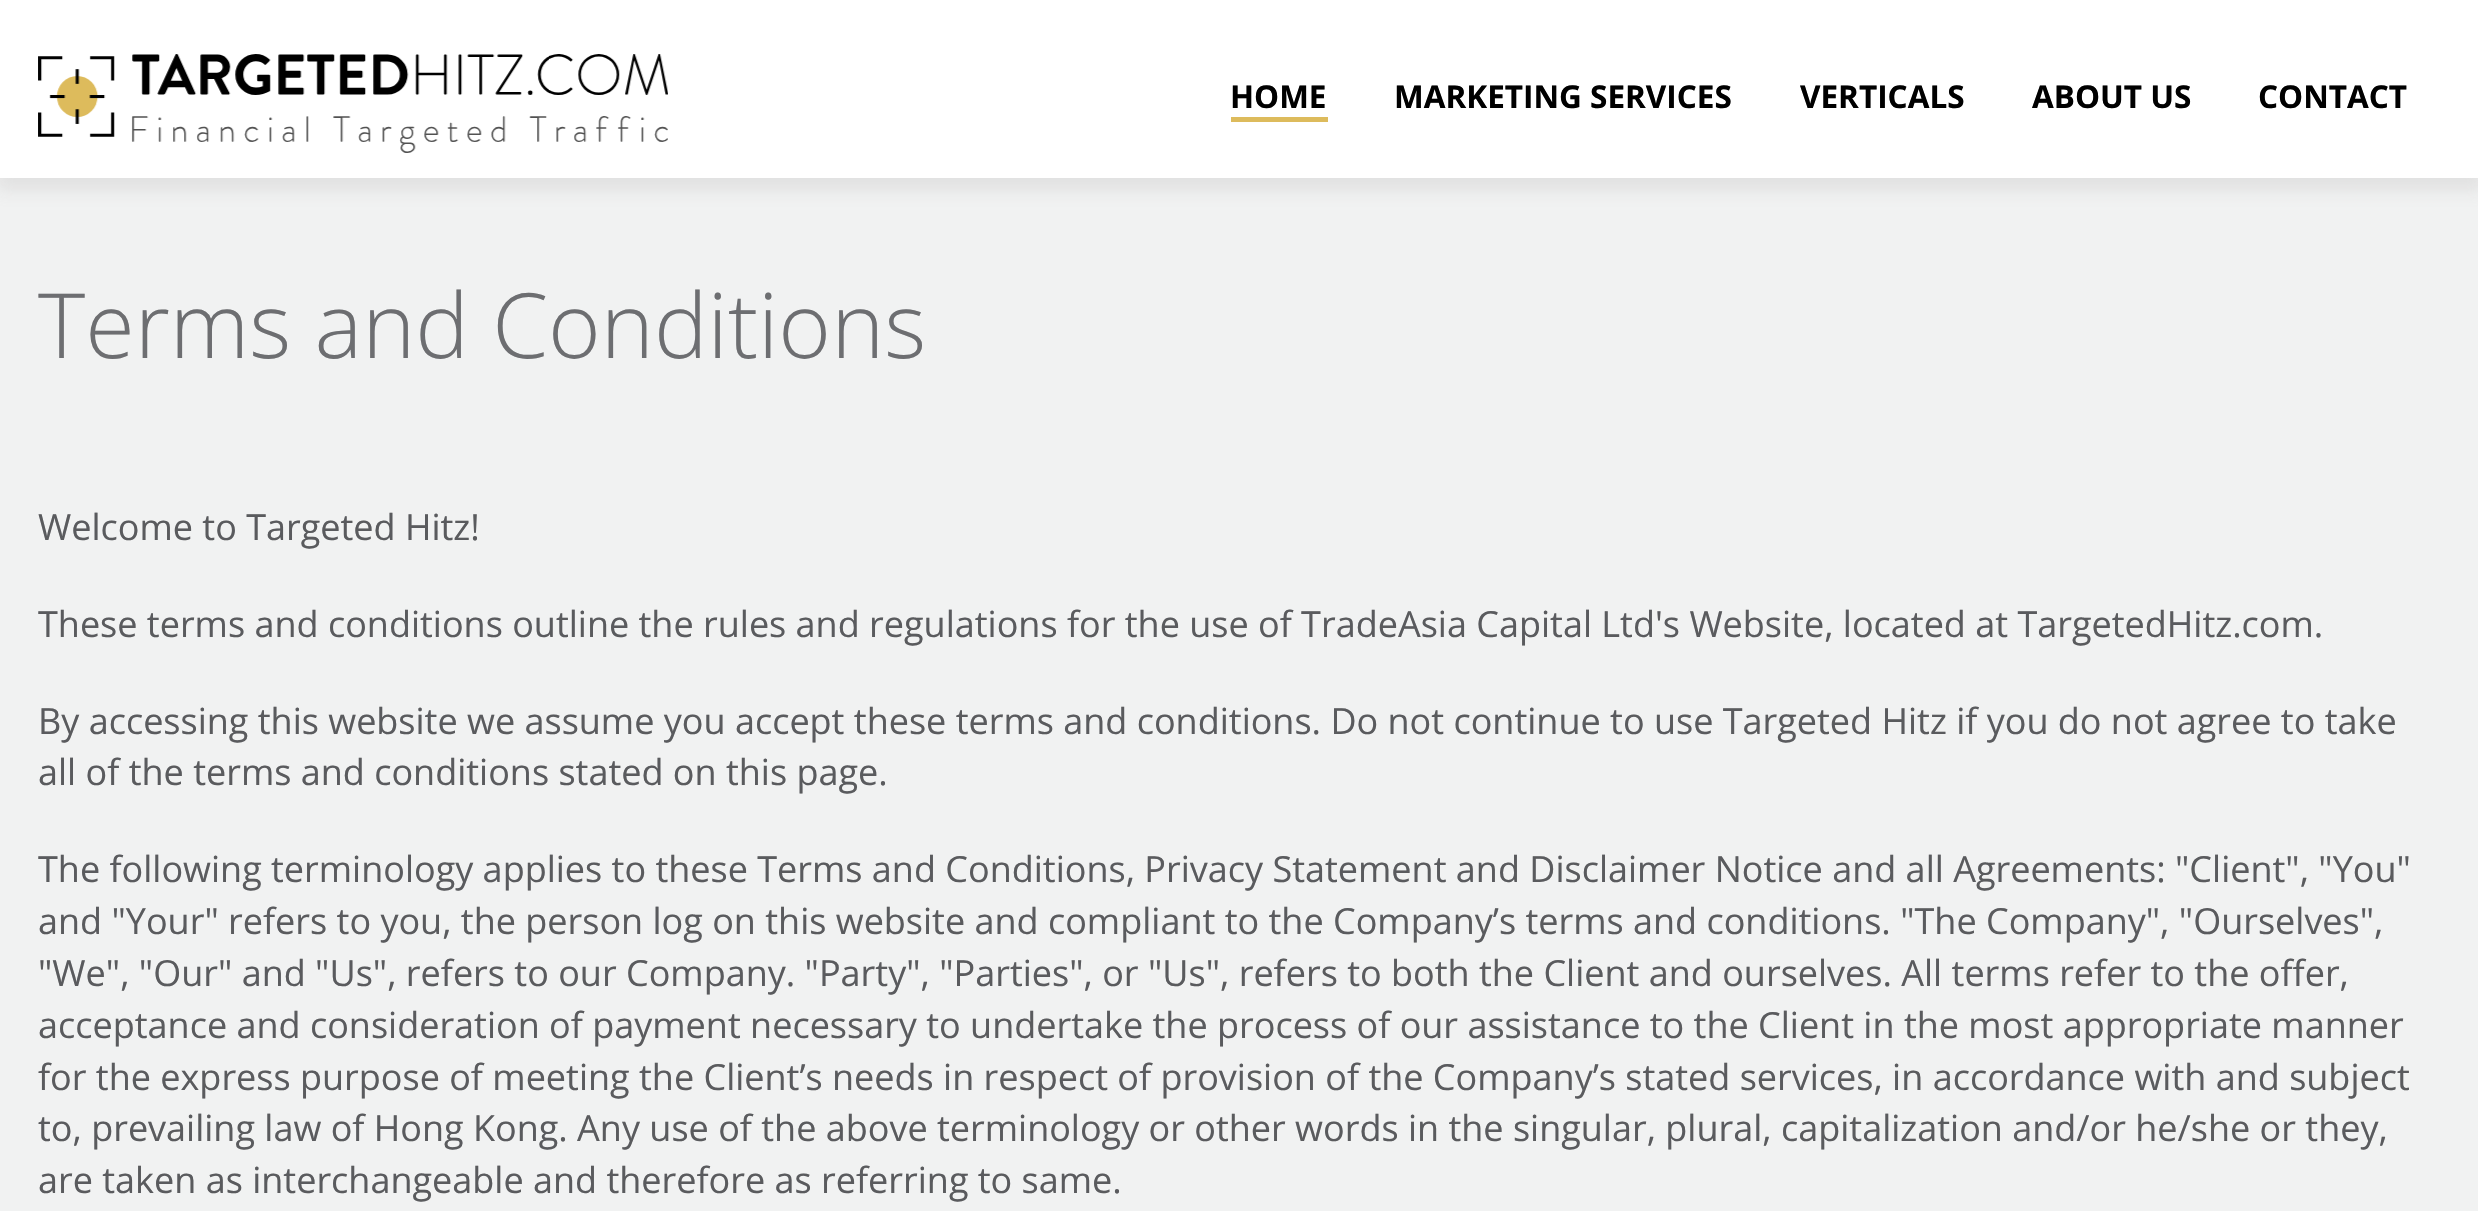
void draw(SkCanvas* canvas) {
	SkPaint fill;
	fill.setAntiAlias(true);
	auto makeFont = [&](const char* family, int weight, float size, bool italic = false) {
		SkFontStyle style(weight, SkFontStyle::kNormal_Width,
			italic ? SkFontStyle::kItalic_Slant : SkFontStyle::kUpright_Slant);
		SkFont result(fontMgr->matchFamilyStyle(family, style), size);
		result.setSubpixel(true);
		return result;
	};
	auto text = [&](const char* s, float x, float y, const SkFont& font) {
		canvas->drawString(s, x, y, font, fill);
	};
	auto box = [&](float l, float t, float r, float b) {
		canvas->drawRect(SkRect::MakeLTRB(l, t, r, b), fill);
	};
	auto picture = [&](const char* path, float l, float t, float r, float b) {
		auto image = SkImages::DeferredFromEncodedData(SkData::MakeFromFileName(path));
		canvas->drawImageRect(image, SkRect::MakeLTRB(l, t, r, b), SkSamplingOptions());
	};
	canvas->clear(0xFFF1F2F2);
	fill.setColor(0x2B929090);
	fill.setMaskFilter(SkMaskFilter::MakeBlur(kNormal_SkBlurStyle, 8));
	canvas->drawRect(SkRect::MakeLTRB(-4, 5, 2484, 191), fill);
	fill.setMaskFilter(nullptr);
	fill.setColor(0xFFFFFFFF);
	box(0, 0, 2478, 178);
	picture("image0.png", 38, 54, 668, 153);
	fill.setColor(0xFFDDBB5C);
	box(1231, 117, 1328, 122);
	auto font1 = makeFont("Open Sans", 700, 31.5f);
	fill.setColor(0xFF000000);
	text("HOME", 1230, 108, font1);
	text("MARKETING SERVICES", 1394, 108, font1);
	text("VERTICALS", 1800, 108, font1);
	text("ABOUT US", 2032, 108, font1);
	text("CONTACT", 2258, 108, font1);
	auto font2 = makeFont("Open Sans", 300, 90);
	fill.setColor(0xFF6D6E71);
	text("Terms and Conditions", 38, 358, font2);
	auto font3 = makeFont("Open Sans", 400, 36);
	fill.setColor(0xFF5A5B5E);
	text("Welcome to Targeted Hitz!", 38, 540, font3);
	text("These terms and conditions outline the rules and regulations for the use of TradeAsia Capital Ltd's Website, located at TargetedHitz.com.", 38, 637, font3);
	text("By accessing this website we assume you accept these terms and conditions. Do not continue to use Targeted Hitz if you do not agree to take", 38, 734, font3);
	text("all of the terms and conditions stated on this page.", 38, 785, font3);
	text("The following terminology applies to these Terms and Conditions, Privacy Statement and Disclaimer Notice and all Agreements: \"Client\", \"You\"", 38, 882, font3);
	text("and \"Your\" refers to you, the person log on this website and compliant to the Company’s terms and conditions. \"The Company\", \"Ourselves\",", 38, 934, font3);
	text("\"We\", \"Our\" and \"Us\", refers to our Company. \"Party\", \"Parties\", or \"Us\", refers to both the Client and ourselves. All terms refer to the offer,", 38, 986, font3);
	text("acceptance and consideration of payment necessary to undertake the process of our assistance to the Client in the most appropriate manner", 38, 1038, font3);
	text("for the express purpose of meeting the Client’s needs in respect of provision of the Company’s stated services, in accordance with and subject", 38, 1090, font3);
	text("to, prevailing law of Hong Kong. Any use of the above terminology or other words in the singular, plural, capitalization and/or he/she or they,", 38, 1141, font3);
	text("are taken as interchangeable and therefore as referring to same.", 38, 1193, font3);
}
